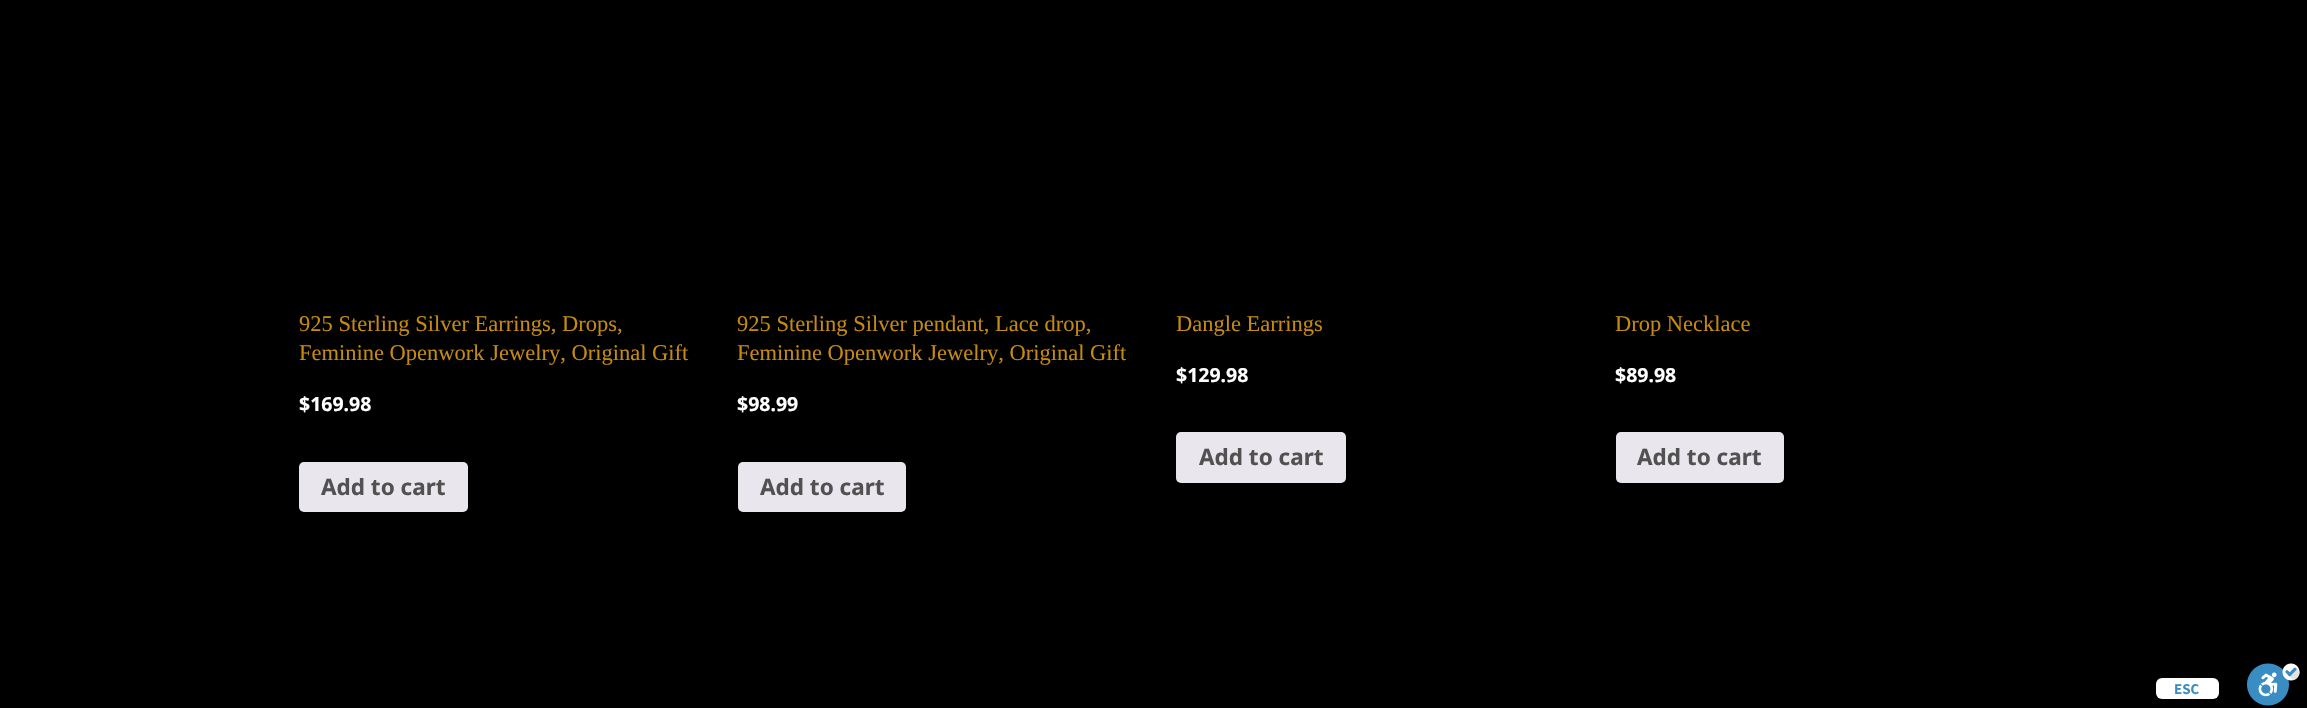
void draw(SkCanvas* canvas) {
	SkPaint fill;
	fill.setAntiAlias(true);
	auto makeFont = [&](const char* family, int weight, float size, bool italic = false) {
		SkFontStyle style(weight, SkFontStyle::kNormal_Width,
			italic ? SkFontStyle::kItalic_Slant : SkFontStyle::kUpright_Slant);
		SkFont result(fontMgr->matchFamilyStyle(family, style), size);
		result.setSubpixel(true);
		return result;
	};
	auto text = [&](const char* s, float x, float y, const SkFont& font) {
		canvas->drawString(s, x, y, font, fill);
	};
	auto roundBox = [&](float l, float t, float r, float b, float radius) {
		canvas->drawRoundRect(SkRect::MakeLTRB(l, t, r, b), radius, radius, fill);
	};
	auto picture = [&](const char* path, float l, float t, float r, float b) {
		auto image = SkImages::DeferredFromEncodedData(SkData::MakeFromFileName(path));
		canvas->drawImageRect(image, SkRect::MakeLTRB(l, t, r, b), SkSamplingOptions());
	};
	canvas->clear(0xFF000000);
	fill.setColor(0xFFE9E6ED);
	roundBox(299, 462, 468, 512, 5);
	roundBox(738, 462, 906, 512, 5);
	roundBox(1176, 432, 1346, 483, 5);
	roundBox(1616, 432, 1784, 483, 5);
	fill.setColor(0xFFFFFFFF);
	roundBox(2156, 678, 2219, 699, 6);
	picture("image0.png", 2247, 663, 2300, 706);
	auto font1 = makeFont("Tinos", 400, 22.5f);
	fill.setColor(0xFFC58A10);
	text("925 Sterling Silver Earrings, Drops,", 299, 331, font1);
	text("Feminine Openwork Jewelry, Original Gift", 299, 360, font1);
	auto font2 = makeFont("Noto Sans", 700, 19.5f);
	fill.setColor(0xFFFFFFFF);
	text("$169.98", 299, 411, font2);
	auto font3 = makeFont("Noto Sans", 700, 22.5f);
	fill.setColor(0xFF515151);
	text("Add to cart", 321, 495, font3);
	fill.setColor(0xFFC58A10);
	text("925 Sterling Silver pendant, Lace drop,", 737, 331, font1);
	text("Feminine Openwork Jewelry, Original Gift", 737, 360, font1);
	fill.setColor(0xFFFFFFFF);
	text("$98.99", 737, 411, font2);
	fill.setColor(0xFF515151);
	text("Add to cart", 760, 495, font3);
	fill.setColor(0xFFC58A10);
	text("Dangle Earrings", 1176, 331, font1);
	fill.setColor(0xFFFFFFFF);
	text("$129.98", 1176, 382, font2);
	fill.setColor(0xFF515151);
	text("Add to cart", 1199, 465, font3);
	fill.setColor(0xFFC58A10);
	text("Drop Necklace", 1615, 331, font1);
	fill.setColor(0xFFFFFFFF);
	text("$89.98", 1615, 382, font2);
	fill.setColor(0xFF515151);
	text("Add to cart", 1637, 465, font3);
	auto font4 = makeFont("Assistant", 700, 15);
	fill.setColor(0xFF3A8DC2);
	text("ESC", 2174, 694, font4);
}
